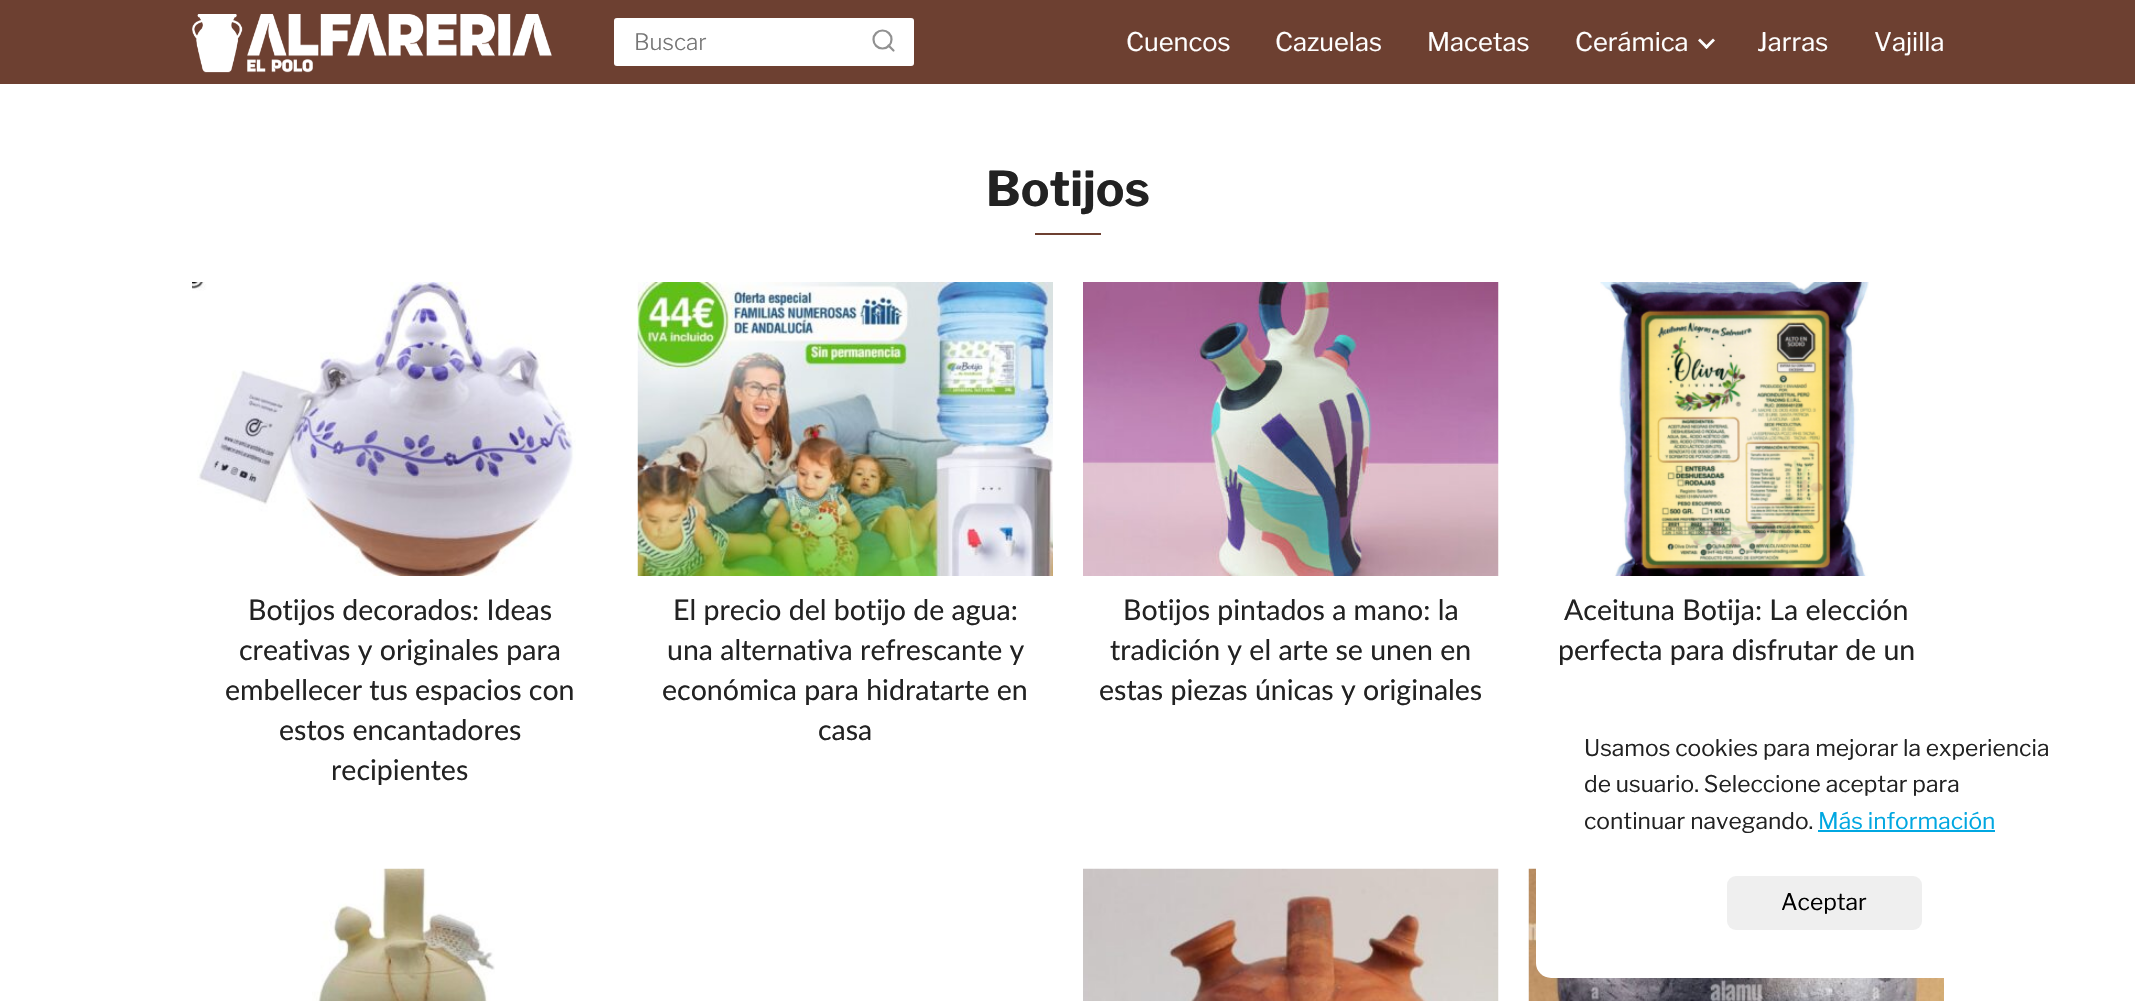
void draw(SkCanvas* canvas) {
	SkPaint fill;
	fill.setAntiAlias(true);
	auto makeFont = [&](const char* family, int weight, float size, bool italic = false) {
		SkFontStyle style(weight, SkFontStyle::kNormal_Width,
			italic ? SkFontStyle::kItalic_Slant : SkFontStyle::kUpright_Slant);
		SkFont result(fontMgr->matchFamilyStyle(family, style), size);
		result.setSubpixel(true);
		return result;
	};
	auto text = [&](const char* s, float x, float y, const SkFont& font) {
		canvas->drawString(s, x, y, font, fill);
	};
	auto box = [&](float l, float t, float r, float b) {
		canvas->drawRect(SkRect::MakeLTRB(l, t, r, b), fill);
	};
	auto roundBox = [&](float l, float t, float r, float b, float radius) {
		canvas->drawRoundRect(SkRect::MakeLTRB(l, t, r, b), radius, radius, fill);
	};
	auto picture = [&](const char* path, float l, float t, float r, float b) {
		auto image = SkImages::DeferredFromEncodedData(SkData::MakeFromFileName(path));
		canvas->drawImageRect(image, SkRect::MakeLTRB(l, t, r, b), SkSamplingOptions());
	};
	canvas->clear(0xFFFFFFFF);
	fill.setColor(0xFF6D4031);
	box(0, 0, 2135, 84);
	picture("image0.png", 192, 14, 552, 73);
	fill.setColor(0xFFFFFFFF);
	roundBox(614, 18, 914, 66, 3);
	fill.setStyle(SkPaint::kStroke_Style);
	fill.setStrokeWidth(2);
	fill.setColor(0x26FFFFFF);
	canvas->drawRoundRect(SkRect::MakeLTRB(615, 19, 913, 65), 2, 2, fill);
	fill.setStrokeWidth(2.2f);
	fill.setColor(0xFF919191);
	canvas->drawCircle(882.5f, 39.5f, 9, fill);
	fill.setStrokeCap(SkPaint::kRound_Cap);
	fill.setStrokeJoin(SkPaint::kRound_Join);
	canvas->drawPath(SkPathBuilder().moveTo(893.5f, 50.5f).lineTo(888.5f, 45.5f).detach(), fill);
	fill.setStyle(SkPaint::kFill_Style);
	fill.setColor(0xFFFFFFFF);
	canvas->drawPath(SkPathBuilder().moveTo(1713, 38.5f).lineTo(1715, 40.5f).lineTo(1706.5f, 49).lineTo(1704.5f, 47).close().detach(), fill);
	canvas->drawPath(SkPathBuilder().moveTo(1700, 38.5f).lineTo(1708.5f, 47).lineTo(1706.5f, 49).lineTo(1698, 40.5f).close().detach(), fill);
	fill.setColor(0xFF6D4031);
	box(1035, 233, 1101, 235);
	picture("image1.png", 192, 282, 576, 576);
	picture("image2.png", 637, 282, 1053, 576);
	picture("image3.png", 1083, 282, 1499, 576);
	picture("image4.png", 1600, 282, 1869, 576);
	picture("image5.png", 312, 868, 495, 1001);
	picture("image6.png", 1083, 868, 1499, 1001);
	picture("image7.png", 1528, 868, 1944, 1001);
	fill.setColor(0xFFFFFFFF);
	roundBox(1536, 683, 2112, 978, 15);
	fill.setColor(0xFF00A7E1);
	box(1818, 830, 1995, 832);
	fill.setColor(0xFFEFEFEF);
	roundBox(1727, 876, 1922, 930, 9);
	auto font1 = makeFont("Libre Franklin", 300, 22.5f);
	fill.setColor(0xFF757575);
	text("Buscar", 634, 50, font1);
	auto font2 = makeFont("Libre Franklin", 400, 25.5f);
	fill.setColor(0xFFFFFFFF);
	text("Cuencos", 1126, 51, font2);
	text("Cazuelas", 1275, 51, font2);
	text("Macetas", 1427, 51, font2);
	text("Cerámica", 1575, 51, font2);
	text("Jarras", 1757, 51, font2);
	text("Vajilla", 1874, 51, font2);
	auto font3 = makeFont("Libre Franklin", 100, 48);
	fill.setColor(0xFF222222);
	text("Botijos", 986, 206, font3);
	auto font4 = makeFont("Lato", 400, 28.5f);
	text("Botijos decorados: Ideas", 248, 620, font4);
	text("creativas y originales para", 239, 660, font4);
	text("embellecer tus espacios con", 225, 700, font4);
	text("estos encantadores", 279, 740, font4);
	text("recipientes", 331, 780, font4);
	text("El precio del botijo de agua:", 673, 620, font4);
	text("una alternativa refrescante y", 667, 660, font4);
	text("económica para hidratarte en", 662, 700, font4);
	text("casa", 818, 740, font4);
	text("Botijos pintados a mano: la", 1123, 620, font4);
	text("tradición y el arte se unen en", 1110, 660, font4);
	text("estas piezas únicas y originales", 1099, 700, font4);
	text("Aceituna Botija: La elección", 1564, 620, font4);
	text("perfecta para disfrutar de un", 1558, 660, font4);
	auto font5 = makeFont("Libre Franklin", 400, 22.8f);
	text("Usamos cookies para mejorar la experiencia", 1584, 756, font5);
	text("de usuario. Seleccione aceptar para", 1584, 792, font5);
	text("continuar navegando.", 1584, 829, font5);
	fill.setColor(0xFF00A7E1);
	text("Más información", 1818, 829, font5);
	fill.setColor(0xFF000000);
	text("Aceptar", 1781, 910, font5);
}
